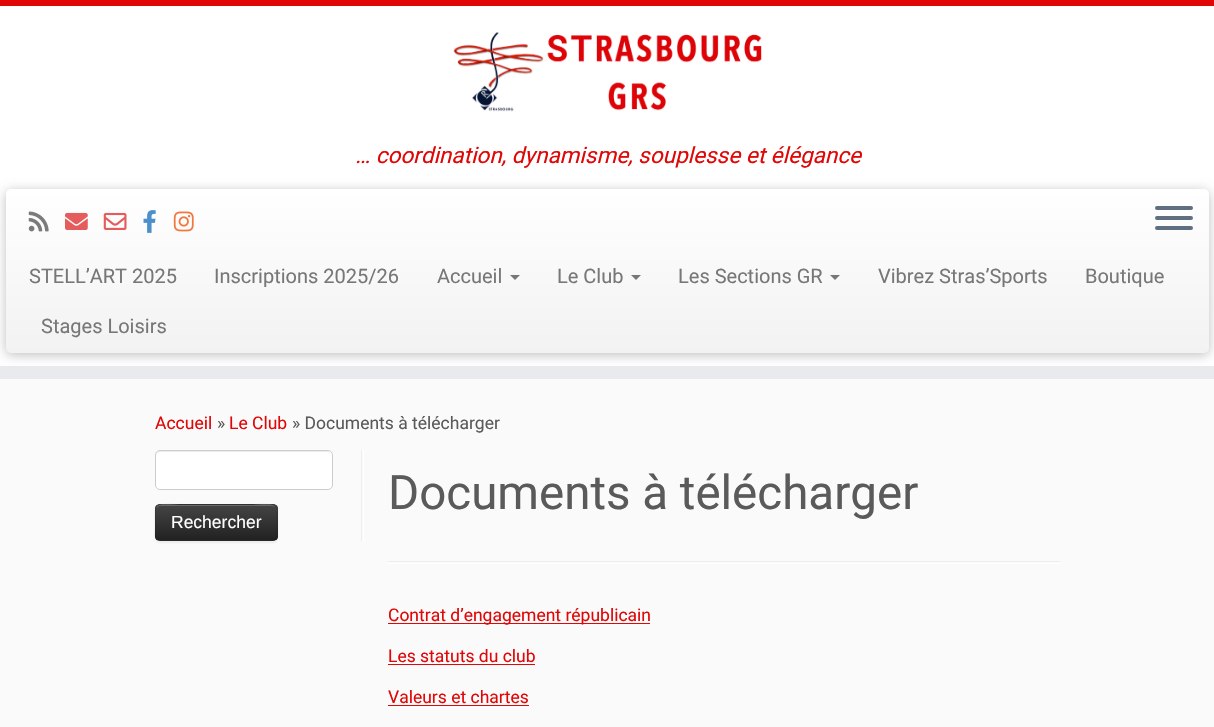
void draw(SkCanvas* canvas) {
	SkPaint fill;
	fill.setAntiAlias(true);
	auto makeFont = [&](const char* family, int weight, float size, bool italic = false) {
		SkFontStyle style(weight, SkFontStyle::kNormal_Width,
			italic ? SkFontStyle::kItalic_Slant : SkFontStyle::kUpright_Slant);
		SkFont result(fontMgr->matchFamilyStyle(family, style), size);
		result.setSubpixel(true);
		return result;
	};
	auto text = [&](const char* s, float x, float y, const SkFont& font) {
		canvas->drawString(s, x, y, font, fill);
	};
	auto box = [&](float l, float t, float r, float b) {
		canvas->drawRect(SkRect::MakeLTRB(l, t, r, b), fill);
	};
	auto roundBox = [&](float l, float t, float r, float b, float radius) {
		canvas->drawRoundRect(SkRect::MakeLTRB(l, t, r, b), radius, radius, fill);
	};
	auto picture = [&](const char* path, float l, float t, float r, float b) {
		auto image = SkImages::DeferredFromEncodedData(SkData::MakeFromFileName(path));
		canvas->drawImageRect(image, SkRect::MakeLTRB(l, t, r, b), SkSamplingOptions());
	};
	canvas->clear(0xFFFAFAFA);
	fill.setColor(0xFFFFFFFF);
	box(0, 6, 1214, 366);
	fill.setColor(0xFFE10707);
	box(0, 0, 1214, 6);
	fill.setColor(0xFFE9EAEE);
	box(0, 366, 1214, 379);
	picture("image0.png", 453, 32, 762, 112);
	fill.setColor(0x40000000);
	fill.setMaskFilter(SkMaskFilter::MakeBlur(kNormal_SkBlurStyle, 6));
	canvas->drawRoundRect(SkRect::MakeLTRB(6, 191, 1209, 355), 5, 5, fill);
	fill.setMaskFilter(nullptr);
	{
		const SkColor colors[] = {0xFFFFFFFF, 0xFFF2F2F2};
		const float stops[] = {0, 1};
		const SkPoint ends[] = {{608, 189}, {608, 353}};
		fill.setShader(SkGradientShader::MakeLinear(ends, colors, stops, 2, SkTileMode::kClamp));
		fill.setAlpha(255);
	}
	roundBox(6, 189, 1209, 353, 5);
	picture("image1.png", 28, 211, 49, 232);
	picture("image2.png", 65, 212, 88, 230);
	picture("image3.png", 103, 212, 127, 230);
	picture("image4.png", 143, 210, 156, 233);
	picture("image5.png", 173, 211, 194, 232);
	fill.setShader(nullptr);
	fill.setColor(0xFF5F6F81);
	roundBox(1155, 206, 1193, 210, 2);
	roundBox(1155, 216, 1193, 220, 2);
	roundBox(1155, 226, 1193, 230, 2);
	fill.setColor(0xFF777777);
	canvas->drawPath(SkPathBuilder().moveTo(510, 275).lineTo(520, 275).lineTo(515, 280).close().detach(), fill);
	canvas->drawPath(SkPathBuilder().moveTo(631, 275).lineTo(641, 275).lineTo(636, 280).close().detach(), fill);
	canvas->drawPath(SkPathBuilder().moveTo(830, 275).lineTo(840, 275).lineTo(835, 280).close().detach(), fill);
	fill.setColor(0xFFEEEEEE);
	box(361, 450, 362, 541);
	fill.setColor(0xFFFFFFFF);
	roundBox(155, 450, 333, 490, 5);
	fill.setColor(0xFFECECEC);
	canvas->drawPath(SkPathBuilder().moveTo(160, 452).lineTo(328, 452).cubicTo(330, 452, 331, 454, 331, 456).lineTo(331, 455).cubicTo(331, 453, 329, 451, 327, 451).lineTo(160, 451).cubicTo(158, 451, 156, 453, 156, 455).lineTo(156, 456).cubicTo(156, 454, 158, 452, 160, 452).close().detach(), fill);
	fill.setStyle(SkPaint::kStroke_Style);
	fill.setStrokeWidth(1);
	fill.setColor(0xFFCCCCCC);
	canvas->drawRoundRect(SkRect::MakeLTRB(155.5f, 450.5f, 332.5f, 489.5f), 4.5f, 4.5f, fill);
	fill.setStyle(SkPaint::kFill_Style);
	fill.setColor(0x0D000000);
	fill.setMaskFilter(SkMaskFilter::MakeBlur(kNormal_SkBlurStyle, 1));
	canvas->drawRoundRect(SkRect::MakeLTRB(155, 505, 278, 543), 5, 5, fill);
	fill.setMaskFilter(nullptr);
	fill.setColor(0xFF363636);
	roundBox(155, 504, 278, 541, 5);
	canvas->save();
	canvas->clipPath(SkPathBuilder().moveTo(160, 504).lineTo(273, 504).cubicTo(276, 504, 278, 506, 278, 509).lineTo(278, 536).cubicTo(278, 539, 276, 541, 273, 541).lineTo(160, 541).cubicTo(157, 541, 155, 539, 155, 536).lineTo(155, 509).cubicTo(155, 506, 157, 504, 160, 504).close().detach(), true);
	{
		const SkColor colors[] = {0xFF444444, 0xFF222222};
		const float stops[] = {0, 1};
		const SkPoint ends[] = {{216, 505}, {216, 540}};
		fill.setShader(SkGradientShader::MakeLinear(ends, colors, stops, 2, SkTileMode::kClamp));
		fill.setAlpha(255);
	}
	box(155, 505, 278, 540);
	canvas->restore();
	fill.setShader(nullptr);
	fill.setColor(0x33FFFFFF);
	canvas->drawPath(SkPathBuilder().moveTo(160, 506).lineTo(272, 506).cubicTo(275, 506, 276, 508, 276, 510).cubicTo(276, 500, 256, 505, 253, 505).lineTo(179, 505).cubicTo(176, 505, 156, 500, 156, 510).cubicTo(156, 508, 158, 506, 160, 506).close().detach(), fill);
	fill.setStyle(SkPaint::kStroke_Style);
	fill.setStrokeWidth(1.2f);
	fill.setColor(0x40000000);
	canvas->drawPath(SkPathBuilder().moveTo(275.5f, 539.5f).cubicTo(275, 540, 273.5f, 540.5f, 272.5f, 540.5f).lineTo(160, 540.5f).cubicTo(159, 540.5f, 157.5f, 540, 157, 539.5f).detach(), fill);
	fill.setColor(0x1A000000);
	canvas->drawPath(SkPathBuilder().moveTo(157, 539.5f).cubicTo(154, 536.5f, 155.5f, 530, 155.5f, 527).cubicTo(155.5f, 500.5f, 151, 504.5f, 179, 504.5f).lineTo(254, 504.5f).cubicTo(281.5f, 504.5f, 277, 500.5f, 277, 527).cubicTo(277, 530, 278.5f, 536.5f, 275.5f, 539.5f).detach(), fill);
	fill.setStyle(SkPaint::kFill_Style);
	fill.setColor(0xFFFFFFFF);
	box(363, 450, 364, 541);
	fill.setColor(0xFFEEEEEE);
	box(388, 561, 1060, 562);
	fill.setColor(0xFFFFFFFF);
	box(388, 563, 1060, 564);
	fill.setColor(0xFFE10707);
	box(388, 623, 650, 624);
	box(388, 664, 535, 665);
	box(388, 705, 529, 706);
	auto font1 = makeFont("Roboto", 400, 22.5f, true);
	text("… coordination, dynamisme, souplesse et élégance", 355, 163, font1);
	auto font2 = makeFont("Roboto", 400, 20);
	fill.setColor(0xFF777777);
	text("STELL’ART 2025", 29, 283, font2);
	text("Inscriptions 2025/26", 214, 283, font2);
	text("Accueil", 437, 283, font2);
	text("Le Club", 557, 283, font2);
	text("Les Sections GR", 678, 283, font2);
	text("Vibrez Stras’Sports", 878, 283, font2);
	text("Boutique", 1085, 283, font2);
	text("Stages Loisirs", 41, 333, font2);
	auto font3 = makeFont("Roboto", 400, 17.5f);
	fill.setColor(0xFFE10707);
	text("Accueil", 155, 429, font3);
	fill.setColor(0xFF5A5A5A);
	text("»", 217, 429, font3);
	fill.setColor(0xFFE10707);
	text("Le Club", 229, 429, font3);
	fill.setColor(0xFF5A5A5A);
	text("» Documents à télécharger", 292, 429, font3);
	auto font4 = makeFont("Liberation Sans", 400, 17.5f);
	fill.setColor(0xFFFFFFFF);
	text("Rechercher", 171, 528, font4);
	auto font5 = makeFont("Roboto", 400, 47.5f);
	fill.setColor(0xFF5A5A5A);
	text("Documents à télécharger", 388, 509, font5);
	fill.setColor(0xFFE10707);
	text("Contrat d’engagement républicain", 388, 621, font3);
	text("Les statuts du club", 388, 662, font3);
	text("Valeurs et chartes", 388, 703, font3);
}
